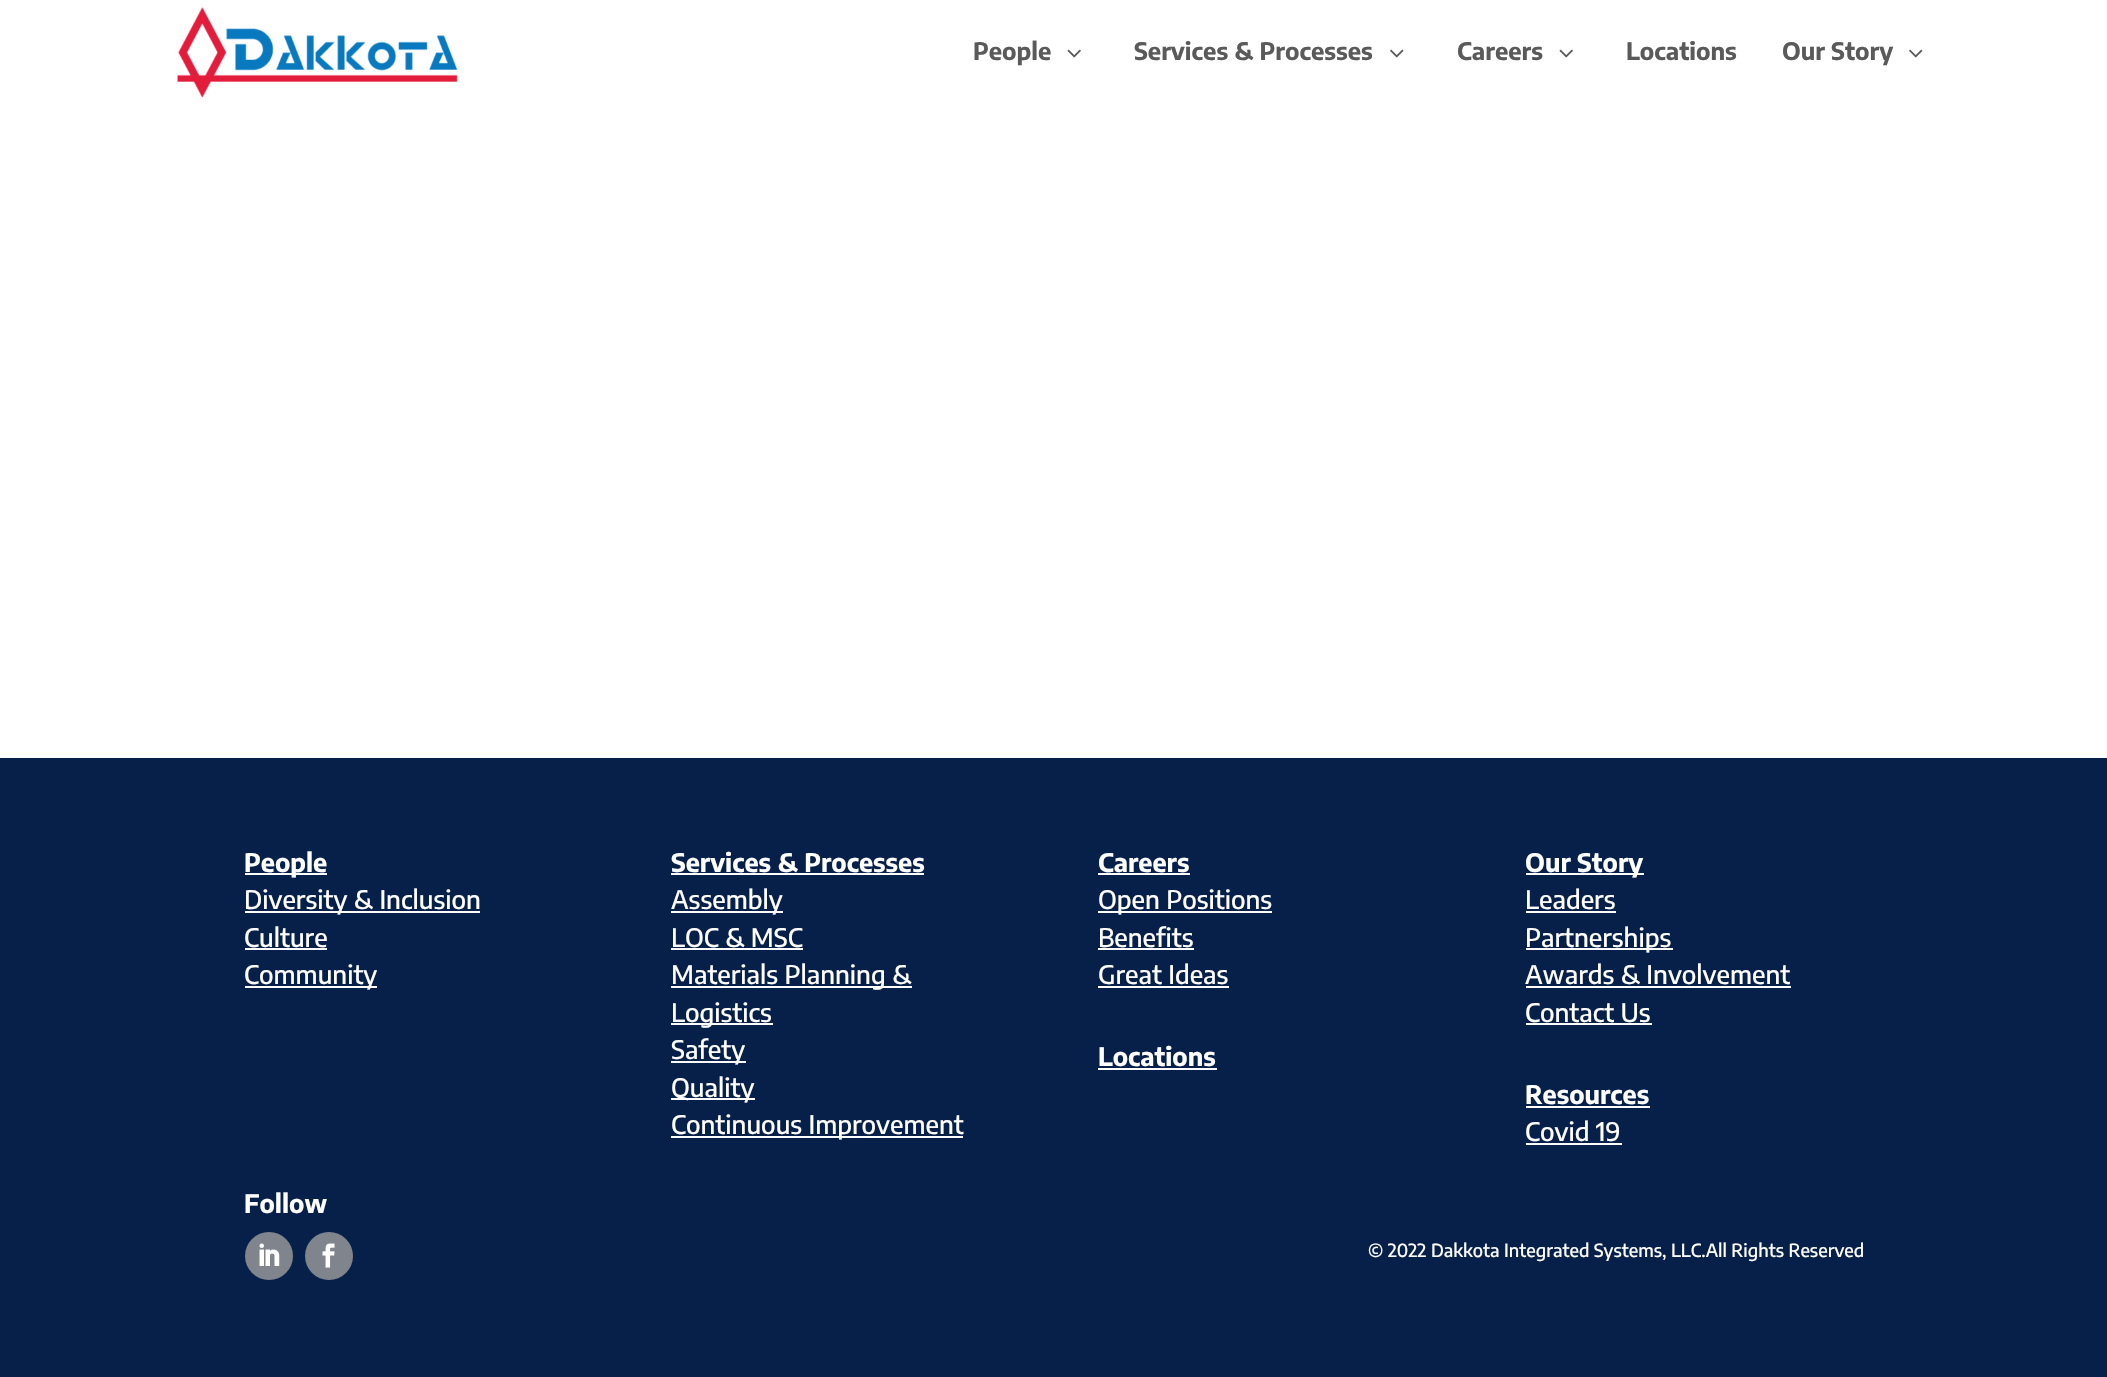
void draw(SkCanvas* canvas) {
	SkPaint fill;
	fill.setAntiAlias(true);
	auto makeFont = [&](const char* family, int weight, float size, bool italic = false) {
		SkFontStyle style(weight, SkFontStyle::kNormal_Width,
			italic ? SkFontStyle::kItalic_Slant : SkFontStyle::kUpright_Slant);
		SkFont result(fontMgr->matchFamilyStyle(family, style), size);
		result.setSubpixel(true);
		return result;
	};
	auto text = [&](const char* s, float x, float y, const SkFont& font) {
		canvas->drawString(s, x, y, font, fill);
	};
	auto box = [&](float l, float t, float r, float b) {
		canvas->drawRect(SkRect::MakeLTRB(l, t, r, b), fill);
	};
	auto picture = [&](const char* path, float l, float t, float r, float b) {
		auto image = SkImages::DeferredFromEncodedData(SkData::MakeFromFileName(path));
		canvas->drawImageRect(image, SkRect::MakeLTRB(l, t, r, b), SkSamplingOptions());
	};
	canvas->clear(0xFFFFFFFF);
	picture("image0.png", 177, 7, 458, 98);
	picture("image1.png", 1067, 49, 1081, 58);
	picture("image2.png", 1390, 49, 1404, 58);
	picture("image1.png", 1559, 49, 1573, 58);
	picture("image2.png", 1909, 49, 1923, 58);
	fill.setColor(0xFF07204A);
	box(0, 758, 2107, 1377);
	fill.setColor(0xFFFFFFFF);
	box(245, 873, 327, 875);
	box(245, 911, 480, 913);
	box(245, 948, 327, 950);
	box(245, 986, 377, 988);
	box(671, 873, 924, 875);
	box(671, 911, 783, 913);
	box(671, 948, 803, 950);
	box(671, 986, 912, 988);
	box(671, 1023, 773, 1025);
	box(671, 1061, 746, 1063);
	box(671, 1098, 755, 1100);
	box(671, 1136, 963, 1138);
	box(1098, 873, 1190, 875);
	box(1098, 911, 1272, 913);
	box(1098, 948, 1194, 950);
	box(1098, 986, 1229, 988);
	box(1098, 1068, 1217, 1070);
	box(1526, 873, 1644, 875);
	box(1526, 911, 1616, 913);
	box(1526, 948, 1673, 950);
	box(1526, 986, 1791, 988);
	box(1526, 1023, 1652, 1025);
	box(1526, 1106, 1650, 1108);
	box(1526, 1143, 1622, 1145);
	fill.setColor(0xFF80848C);
	canvas->drawCircle(269, 1256, 24, fill);
	picture("image3.png", 259, 1243, 280, 1266);
	canvas->drawCircle(329, 1256, 24, fill);
	picture("image4.png", 322, 1243, 335, 1268);
	auto font1 = makeFont("Encode Sans Condensed", 100, 24);
	fill.setColor(0xFF5A5A5A);
	text("People", 973, 60, font1);
	text("Services & Processes", 1134, 60, font1);
	text("Careers", 1457, 60, font1);
	text("Locations", 1626, 60, font1);
	text("Our Story", 1782, 60, font1);
	auto font2 = makeFont("Encode Sans Condensed", 100, 25.5f);
	fill.setColor(0xFFFFFFFF);
	text("People", 244, 872, font2);
	auto font3 = makeFont("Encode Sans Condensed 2", 100, 25.5f);
	text("Diversity & Inclusion", 244, 909, font3);
	text("Culture", 244, 947, font3);
	text("Community", 244, 984, font3);
	text("Services & Processes", 671, 872, font2);
	text("Assembly", 671, 909, font3);
	text("LOC & MSC", 671, 947, font3);
	text("Materials Planning &", 671, 984, font3);
	text("Logistics", 671, 1022, font3);
	text("Safety", 671, 1059, font3);
	text("Quality", 671, 1097, font3);
	text("Continuous Improvement", 671, 1134, font3);
	text("Careers", 1098, 872, font2);
	text("Open Positions", 1098, 909, font3);
	text("Benefits", 1098, 947, font3);
	text("Great Ideas", 1098, 984, font3);
	text("Locations", 1098, 1066, font2);
	text("Our Story", 1525, 872, font2);
	text("Leaders", 1525, 909, font3);
	text("Partnerships", 1525, 947, font3);
	text("Awards & Involvement", 1525, 984, font3);
	text("Contact Us", 1525, 1022, font3);
	text("Resources", 1525, 1104, font2);
	text("Covid 19", 1525, 1141, font3);
	text("Follow", 244, 1213, font2);
	auto font4 = makeFont("Encode Sans Condensed 2", 100, 18);
	text("© 2022 Dakkota Integrated Systems, LLC.All Rights Reserved", 1368, 1257, font4);
}
